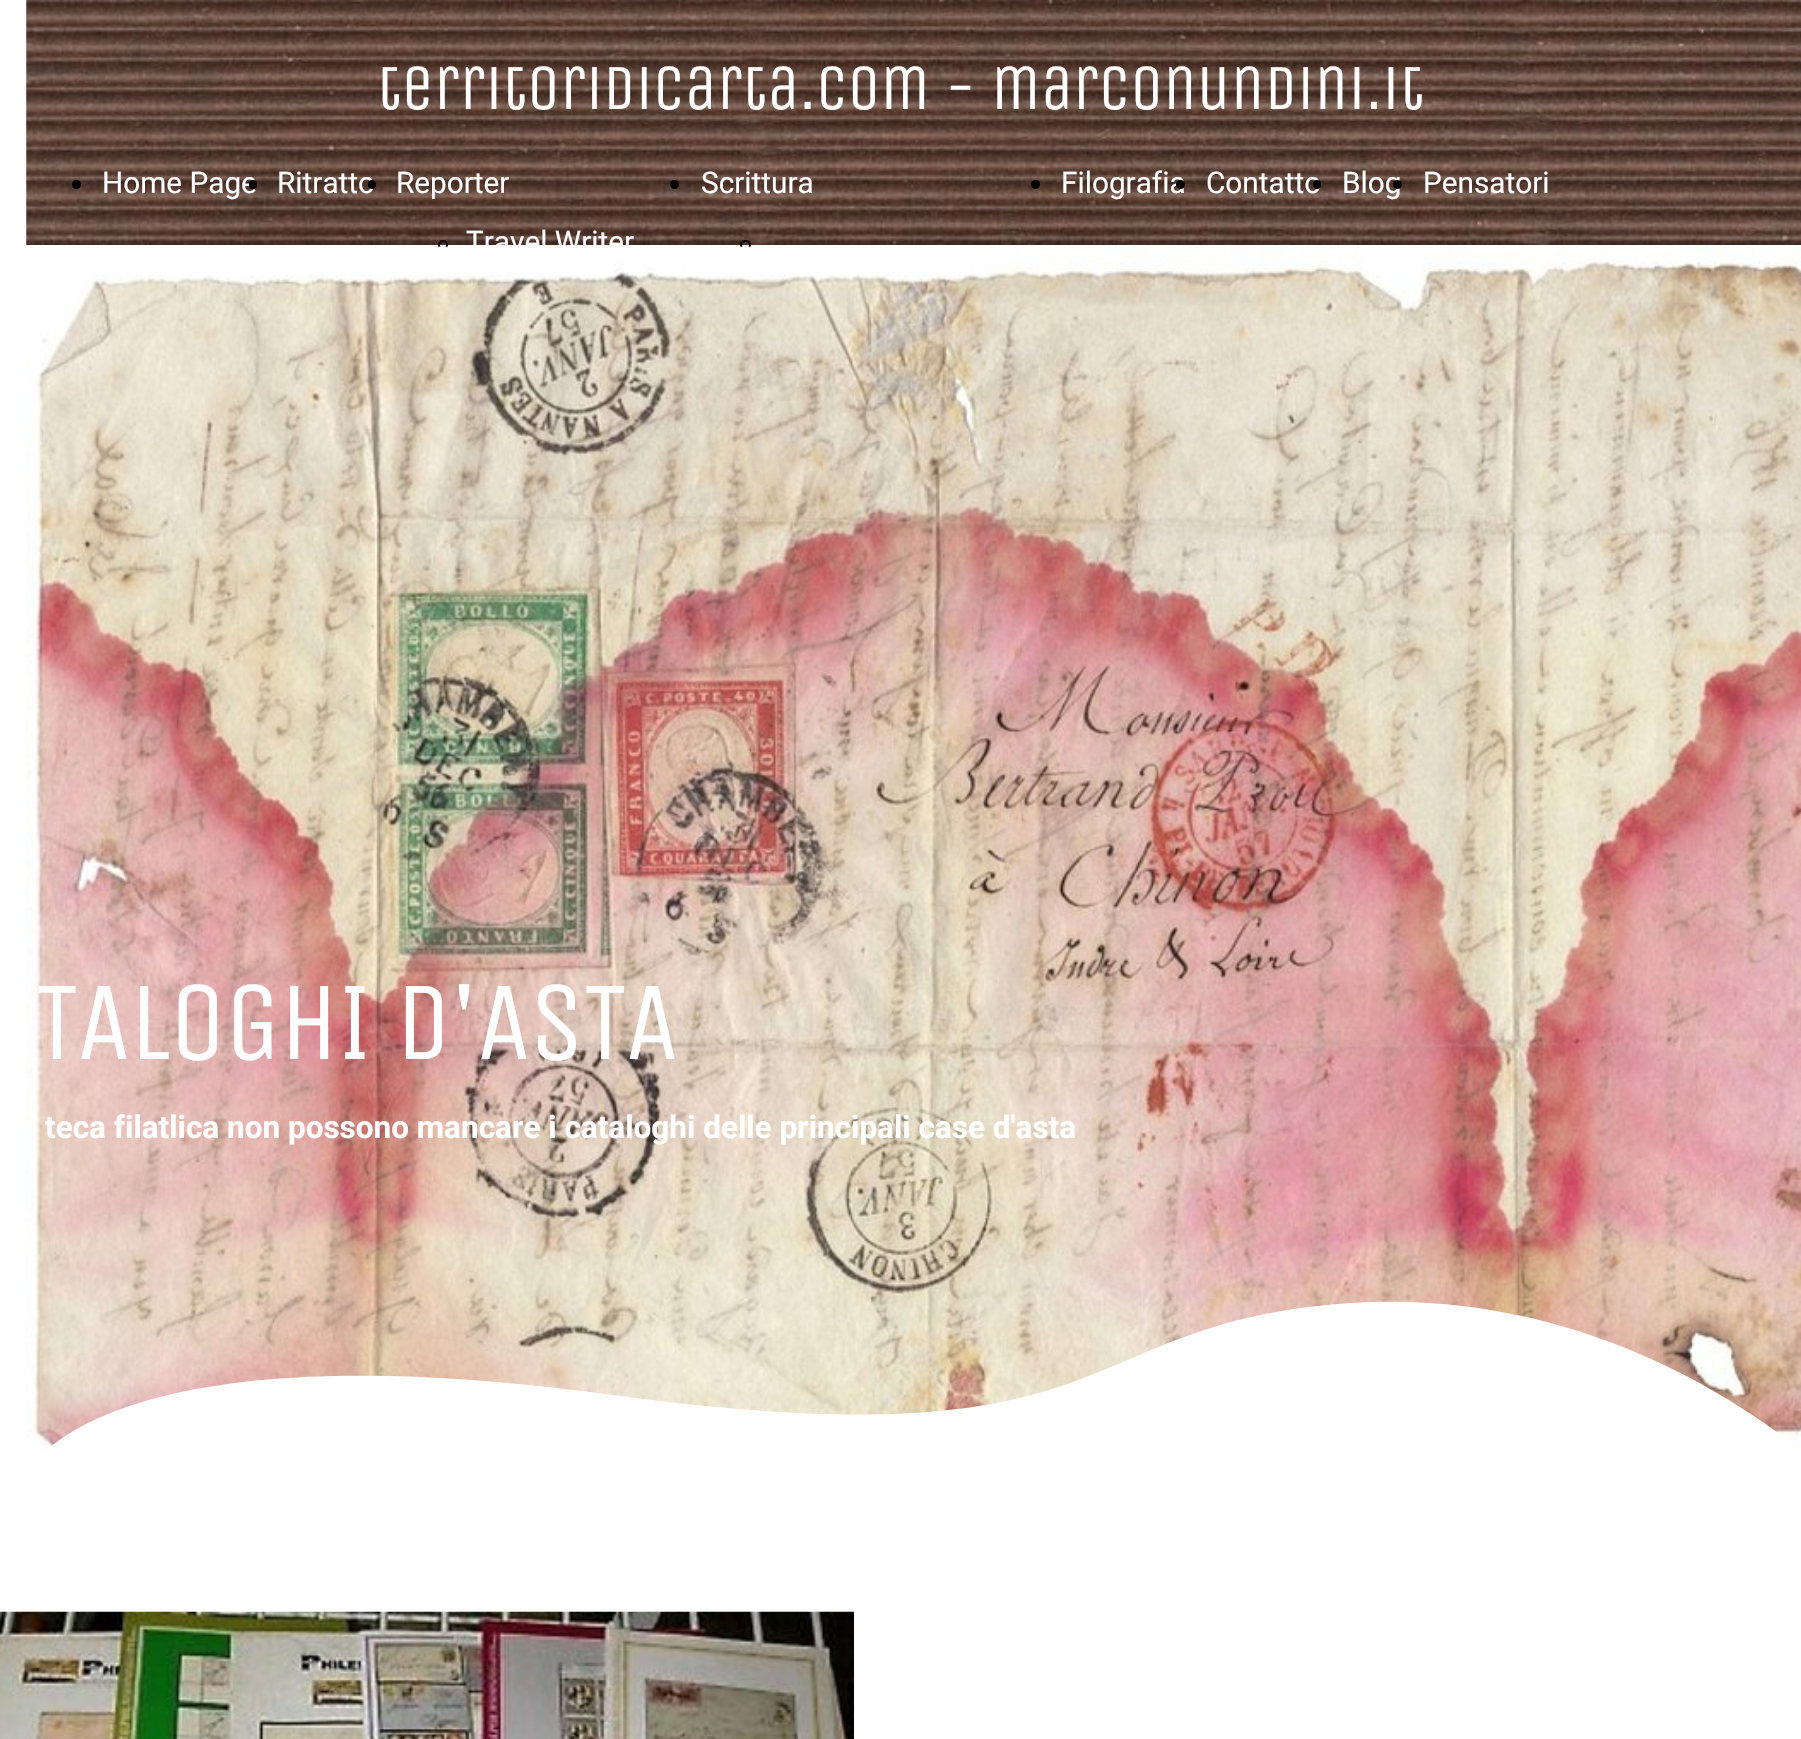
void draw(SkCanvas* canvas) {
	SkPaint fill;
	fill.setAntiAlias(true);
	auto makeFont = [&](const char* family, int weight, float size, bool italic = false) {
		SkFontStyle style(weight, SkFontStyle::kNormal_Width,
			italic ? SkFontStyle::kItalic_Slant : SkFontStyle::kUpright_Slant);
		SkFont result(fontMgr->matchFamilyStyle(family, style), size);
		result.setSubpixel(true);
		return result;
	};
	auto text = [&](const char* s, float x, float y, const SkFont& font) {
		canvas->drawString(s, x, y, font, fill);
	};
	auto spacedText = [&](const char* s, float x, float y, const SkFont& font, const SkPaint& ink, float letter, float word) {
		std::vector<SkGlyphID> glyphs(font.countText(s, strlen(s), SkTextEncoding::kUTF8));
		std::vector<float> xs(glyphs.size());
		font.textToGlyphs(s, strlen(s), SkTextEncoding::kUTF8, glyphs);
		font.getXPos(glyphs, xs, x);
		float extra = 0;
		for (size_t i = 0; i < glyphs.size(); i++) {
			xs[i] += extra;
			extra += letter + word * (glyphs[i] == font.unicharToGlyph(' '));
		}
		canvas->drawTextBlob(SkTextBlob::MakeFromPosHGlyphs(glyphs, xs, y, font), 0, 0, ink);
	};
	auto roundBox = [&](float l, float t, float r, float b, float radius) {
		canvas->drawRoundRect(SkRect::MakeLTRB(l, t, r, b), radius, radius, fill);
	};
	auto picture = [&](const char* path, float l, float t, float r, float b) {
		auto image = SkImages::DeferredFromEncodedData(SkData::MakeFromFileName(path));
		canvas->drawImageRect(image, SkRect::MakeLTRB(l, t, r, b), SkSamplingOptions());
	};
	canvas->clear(0xFFFFFFFF);
	picture("image0.png", 26, 0, 1801, 245);
	fill.setColor(0xFF000000);
	canvas->drawCircle(76.5f, 184.5f, 4.5f, fill);
	fill.setStyle(SkPaint::kStroke_Style);
	fill.setStrokeWidth(2);
	canvas->drawCircle(443, 245, 4, fill);
	fill.setStyle(SkPaint::kFill_Style);
	canvas->drawCircle(674.5f, 184.5f, 4.5f, fill);
	fill.setStyle(SkPaint::kStroke_Style);
	canvas->drawRoundRect(SkRect::MakeLTRB(741, 241, 750, 249), 4, 4, fill);
	fill.setStyle(SkPaint::kFill_Style);
	canvas->drawCircle(1035.5f, 184.5f, 4.5f, fill);
	picture("image2.png", 0, 1611, 854, 1739);
	auto font1 = makeFont("Unica One", 400, 64.4f);
	fill.setColor(0xFFFFFFFF);
	text("territoridicarta.com - marconundini.it", 377, 109, font1);
	auto font2 = makeFont("Roboto", 400, 29.75f);
	text("Home Page", 102, 193, font2);
	fill.setColor(0xFF000000);
	roundBox(249, 180, 257, 189, 4);
	fill.setColor(0xFFFFFFFF);
	text("Ritratto", 277, 193, font2);
	fill.setColor(0xFF000000);
	roundBox(368, 180, 376, 189, 4);
	fill.setColor(0xFFFFFFFF);
	text("Reporter", 396, 193, font2);
	text("Travel Writer", 466, 252, font2);
	text("Scrittura", 701, 193, font2);
	text("Filografia", 1061, 193, font2);
	fill.setColor(0xFF000000);
	canvas->drawCircle(1180.5f, 184.5f, 4.5f, fill);
	fill.setColor(0xFFFFFFFF);
	text("Contatto", 1206, 193, font2);
	fill.setColor(0xFF000000);
	roundBox(1313, 180, 1321, 189, 4);
	fill.setColor(0xFFFFFFFF);
	text("Blog", 1342, 193, font2);
	fill.setColor(0xFF000000);
	canvas->drawCircle(1397.5f, 184.5f, 4.5f, fill);
	fill.setColor(0xFFFFFFFF);
	text("Pensatori", 1423, 193, font2);
	picture("image1.png", 26, 246, 1801, 1472);
	auto font3 = makeFont("Unica One", 400, 112.25f);
	spacedText("TALOGHI D'ASTA", 35, 1059, font3, fill, -1.75f, 0);
	auto font4 = makeFont("Roboto", 700, 31.5f);
	text("teca filatlica non possono mancare i cataloghi delle principali case d'asta", 45, 1138, font4);
	canvas->drawPath(SkPathBuilder().moveTo(26, 1475).lineTo(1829, 1475).cubicTo(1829, 1475, 1638, 1284, 1351, 1303).cubicTo(1065, 1322, 1136, 1466, 613, 1395).cubicTo(90, 1323, 26, 1475, 26, 1475).close().detach(), fill);
}
